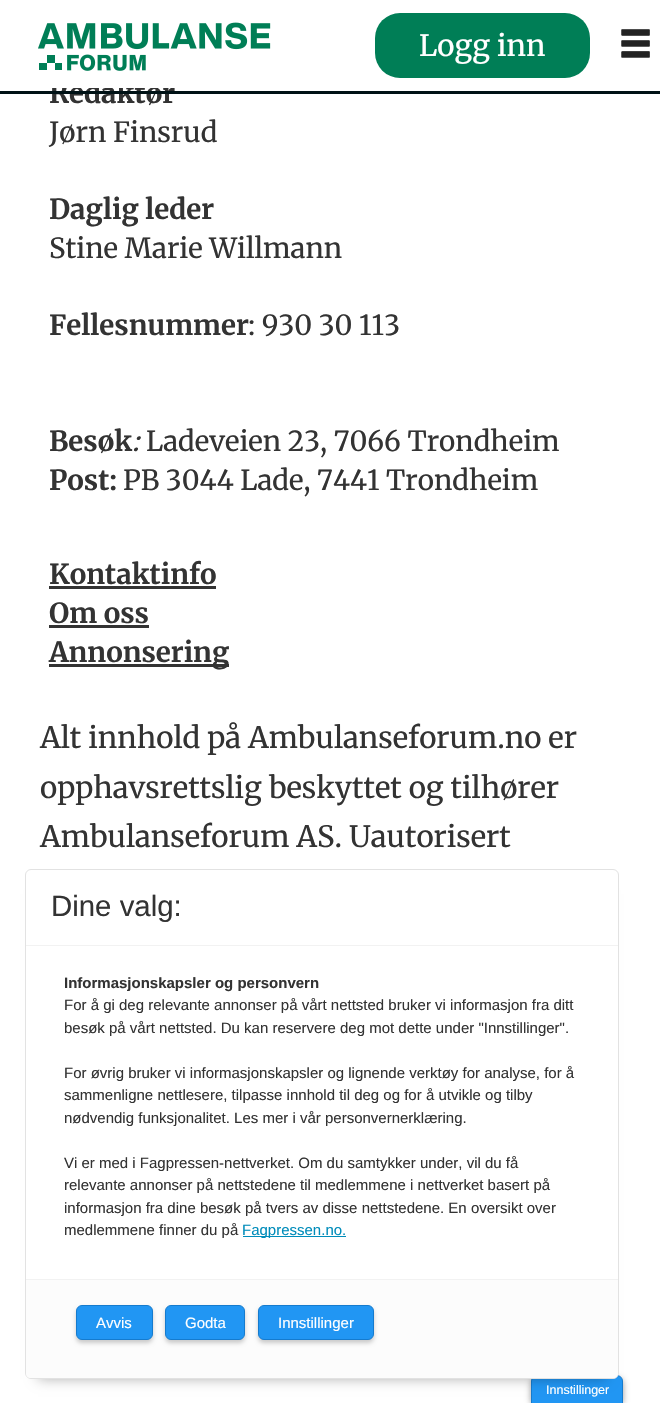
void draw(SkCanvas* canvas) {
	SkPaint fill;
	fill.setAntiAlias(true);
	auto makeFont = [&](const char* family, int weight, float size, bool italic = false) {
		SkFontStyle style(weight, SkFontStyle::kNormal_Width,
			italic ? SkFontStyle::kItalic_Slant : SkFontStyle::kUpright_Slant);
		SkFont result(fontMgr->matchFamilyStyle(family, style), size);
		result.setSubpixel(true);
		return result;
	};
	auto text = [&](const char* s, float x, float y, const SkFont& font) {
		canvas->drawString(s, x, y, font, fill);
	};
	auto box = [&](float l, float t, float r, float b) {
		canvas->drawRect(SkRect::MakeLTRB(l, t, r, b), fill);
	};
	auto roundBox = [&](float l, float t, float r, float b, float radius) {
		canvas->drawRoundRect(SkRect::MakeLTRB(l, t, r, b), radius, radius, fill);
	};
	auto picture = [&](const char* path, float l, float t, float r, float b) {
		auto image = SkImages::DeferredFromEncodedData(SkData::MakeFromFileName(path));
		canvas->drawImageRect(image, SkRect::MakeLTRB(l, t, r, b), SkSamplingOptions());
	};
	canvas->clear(0xFFFFFFFF);
	picture("image0.png", 38, 22, 271, 71);
	fill.setColor(0xFF007E56);
	roundBox(375, 13, 590, 78, 25);
	picture("image1.png", 621, 29, 650, 58);
	fill.setColor(0xFF333333);
	box(49, 586, 216, 589);
	box(49, 625, 149, 628);
	box(49, 664, 229, 667);
	fill.setColor(0x66000000);
	fill.setMaskFilter(SkMaskFilter::MakeBlur(kNormal_SkBlurStyle, 3));
	canvas->drawRoundRect(SkRect::MakeLTRB(531, 1378, 623, 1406), 6, 6, fill);
	fill.setMaskFilter(nullptr);
	fill.setColor(0xFF2196F3);
	canvas->drawPath(SkPathBuilder().moveTo(537, 1375.5f).lineTo(617, 1375.5f).cubicTo(620, 1375.5f, 622.5f, 1378, 622.5f, 1381).lineTo(622.5f, 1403.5f).lineTo(531.5f, 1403.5f).lineTo(531.5f, 1381).cubicTo(531.5f, 1378, 534, 1375.5f, 537, 1375.5f).close().detach(), fill);
	fill.setStyle(SkPaint::kStroke_Style);
	fill.setStrokeWidth(1);
	fill.setColor(0xFF157BCE);
	canvas->drawPath(SkPathBuilder().moveTo(537, 1375.5f).lineTo(617, 1375.5f).cubicTo(620, 1375.5f, 622.5f, 1378, 622.5f, 1381).lineTo(622.5f, 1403.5f).lineTo(531.5f, 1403.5f).lineTo(531.5f, 1381).cubicTo(531.5f, 1378, 534, 1375.5f, 537, 1375.5f).close().detach(), fill);
	fill.setStyle(SkPaint::kFill_Style);
	fill.setColor(0x4D000000);
	fill.setMaskFilter(SkMaskFilter::MakeBlur(kNormal_SkBlurStyle, 6));
	canvas->drawRect(SkRect::MakeLTRB(38, 894, 606, 1379), fill);
	fill.setMaskFilter(nullptr);
	fill.setColor(0xFFFFFFFF);
	canvas->drawRoundRect(SkRect::MakeLTRB(25.5f, 869.5f, 618.5f, 1378.5f), 5.5f, 5.5f, fill);
	fill.setStyle(SkPaint::kStroke_Style);
	fill.setColor(0xFFE2E2E2);
	canvas->drawRoundRect(SkRect::MakeLTRB(25.5f, 869.5f, 618.5f, 1378.5f), 5.5f, 5.5f, fill);
	fill.setStyle(SkPaint::kFill_Style);
	fill.setColor(0xFFF2F2F2);
	box(26, 945, 618, 946);
	fill.setColor(0xFF008CBA);
	box(243, 1236, 346, 1237);
	fill.setColor(0xFFFCFCFC);
	canvas->drawPath(SkPathBuilder().moveTo(26, 1279).lineTo(618, 1279).lineTo(618, 1373).cubicTo(618, 1376, 616, 1378, 613, 1378).lineTo(31, 1378).cubicTo(28, 1378, 26, 1376, 26, 1373).close().detach(), fill);
	fill.setColor(0xFFF2F2F2);
	box(26, 1279, 618, 1280);
	fill.setColor(0x33000000);
	fill.setMaskFilter(SkMaskFilter::MakeBlur(kNormal_SkBlurStyle, 2));
	canvas->drawRoundRect(SkRect::MakeLTRB(76, 1308, 153, 1343), 6, 6, fill);
	fill.setMaskFilter(nullptr);
	fill.setColor(0xFF2196F3);
	canvas->drawRoundRect(SkRect::MakeLTRB(76.5f, 1305.5f, 152.5f, 1339.5f), 5.5f, 5.5f, fill);
	fill.setStyle(SkPaint::kStroke_Style);
	fill.setColor(0xFF157BCE);
	canvas->drawRoundRect(SkRect::MakeLTRB(76.5f, 1305.5f, 152.5f, 1339.5f), 5.5f, 5.5f, fill);
	fill.setStyle(SkPaint::kFill_Style);
	fill.setColor(0x33000000);
	fill.setMaskFilter(SkMaskFilter::MakeBlur(kNormal_SkBlurStyle, 2));
	canvas->drawRoundRect(SkRect::MakeLTRB(165, 1308, 245, 1343), 6, 6, fill);
	fill.setMaskFilter(nullptr);
	fill.setColor(0xFF2196F3);
	canvas->drawRoundRect(SkRect::MakeLTRB(165.5f, 1305.5f, 244.5f, 1339.5f), 5.5f, 5.5f, fill);
	fill.setStyle(SkPaint::kStroke_Style);
	fill.setColor(0xFF157BCE);
	canvas->drawRoundRect(SkRect::MakeLTRB(165.5f, 1305.5f, 244.5f, 1339.5f), 5.5f, 5.5f, fill);
	fill.setStyle(SkPaint::kFill_Style);
	fill.setColor(0x33000000);
	fill.setMaskFilter(SkMaskFilter::MakeBlur(kNormal_SkBlurStyle, 2));
	canvas->drawRoundRect(SkRect::MakeLTRB(258, 1308, 374, 1343), 6, 6, fill);
	fill.setMaskFilter(nullptr);
	fill.setColor(0xFF2196F3);
	canvas->drawRoundRect(SkRect::MakeLTRB(258.5f, 1305.5f, 373.5f, 1339.5f), 5.5f, 5.5f, fill);
	fill.setStyle(SkPaint::kStroke_Style);
	fill.setColor(0xFF157BCE);
	canvas->drawRoundRect(SkRect::MakeLTRB(258.5f, 1305.5f, 373.5f, 1339.5f), 5.5f, 5.5f, fill);
	auto font1 = makeFont("Merriweather", 400, 29.4f);
	fill.setStyle(SkPaint::kFill_Style);
	fill.setColor(0xFFFFFFFF);
	text("Logg inn", 419, 56, font1);
	auto font2 = makeFont("Merriweather", 700, 27.7f);
	fill.setColor(0xFF333333);
	text("Redaktør", 49, 103, font2);
	fill.setColor(0xFF001216);
	box(0, 91, 660, 94);
	fill.setColor(0xFFFFFFFF);
	box(50, 80, 175, 88);
	auto font3 = makeFont("Merriweather", 400, 27.7f);
	fill.setColor(0xFF333333);
	text("Jørn Finsrud", 49, 142, font3);
	text("Daglig leder", 49, 219, font2);
	text("Stine Marie Willmann", 49, 258, font3);
	text("Fellesnummer", 49, 335, font2);
	text(": 930 30 113", 248, 335, font3);
	text("Besøk", 49, 451, font2);
	auto font4 = makeFont("Merriweather", 400, 27.7f, true);
	text(":", 132, 451, font4);
	text("Ladeveien 23, 7066 Trondheim", 146, 451, font3);
	text("Post:", 49, 490, font2);
	text("PB 3044 Lade, 7441 Trondheim", 123, 490, font3);
	text("Kontaktinfo", 49, 584, font2);
	text("Om oss", 49, 623, font2);
	text("Annonsering", 49, 662, font2);
	text("Alt innhold på Ambulanseforum.no er", 40, 748, font1);
	text("opphavsrettslig beskyttet og tilhører", 40, 798, font1);
	text("Ambulanseforum AS. Uautorisert", 40, 847, font1);
	auto font5 = makeFont("Liberation Sans", 400, 29.4f);
	text("Dine valg:", 51, 916, font5);
	auto font6 = makeFont("Liberation Sans", 700, 15);
	text("Informasjonskapsler og personvern", 64, 988, font6);
	auto font7 = makeFont("Liberation Sans", 400, 15);
	text("For å gi deg relevante annonser på vårt nettsted bruker vi informasjon fra ditt", 64, 1010, font7);
	text("besøk på vårt nettsted. Du kan reservere deg mot dette under \"Innstillinger\".", 64, 1033, font7);
	text("For øvrig bruker vi informasjonskapsler og lignende verktøy for analyse, for å", 64, 1078, font7);
	text("sammenligne nettlesere, tilpasse innhold til deg og for å utvikle og tilby", 64, 1100, font7);
	text("nødvendig funksjonalitet. Les mer i vår personvernerklæring.", 64, 1123, font7);
	text("Vi er med i Fagpressen-nettverket. Om du samtykker under, vil du få", 64, 1168, font7);
	text("relevante annonser på nettstedene til medlemmene i nettverket basert på", 64, 1190, font7);
	text("informasjon fra dine besøk på tvers av disse nettstedene. En oversikt over", 64, 1213, font7);
	text("medlemmene finner du på", 64, 1235, font7);
	fill.setColor(0xFF008CBA);
	text("Fagpressen.no.", 242, 1235, font7);
	fill.setColor(0xFFFFFFFF);
	text("Avvis", 96, 1328, font7);
	text("Godta", 185, 1328, font7);
	text("Innstillinger", 278, 1328, font7);
	auto font8 = makeFont("Liberation Sans", 400, 12.5f);
	text("Innstillinger", 546, 1394, font8);
}
